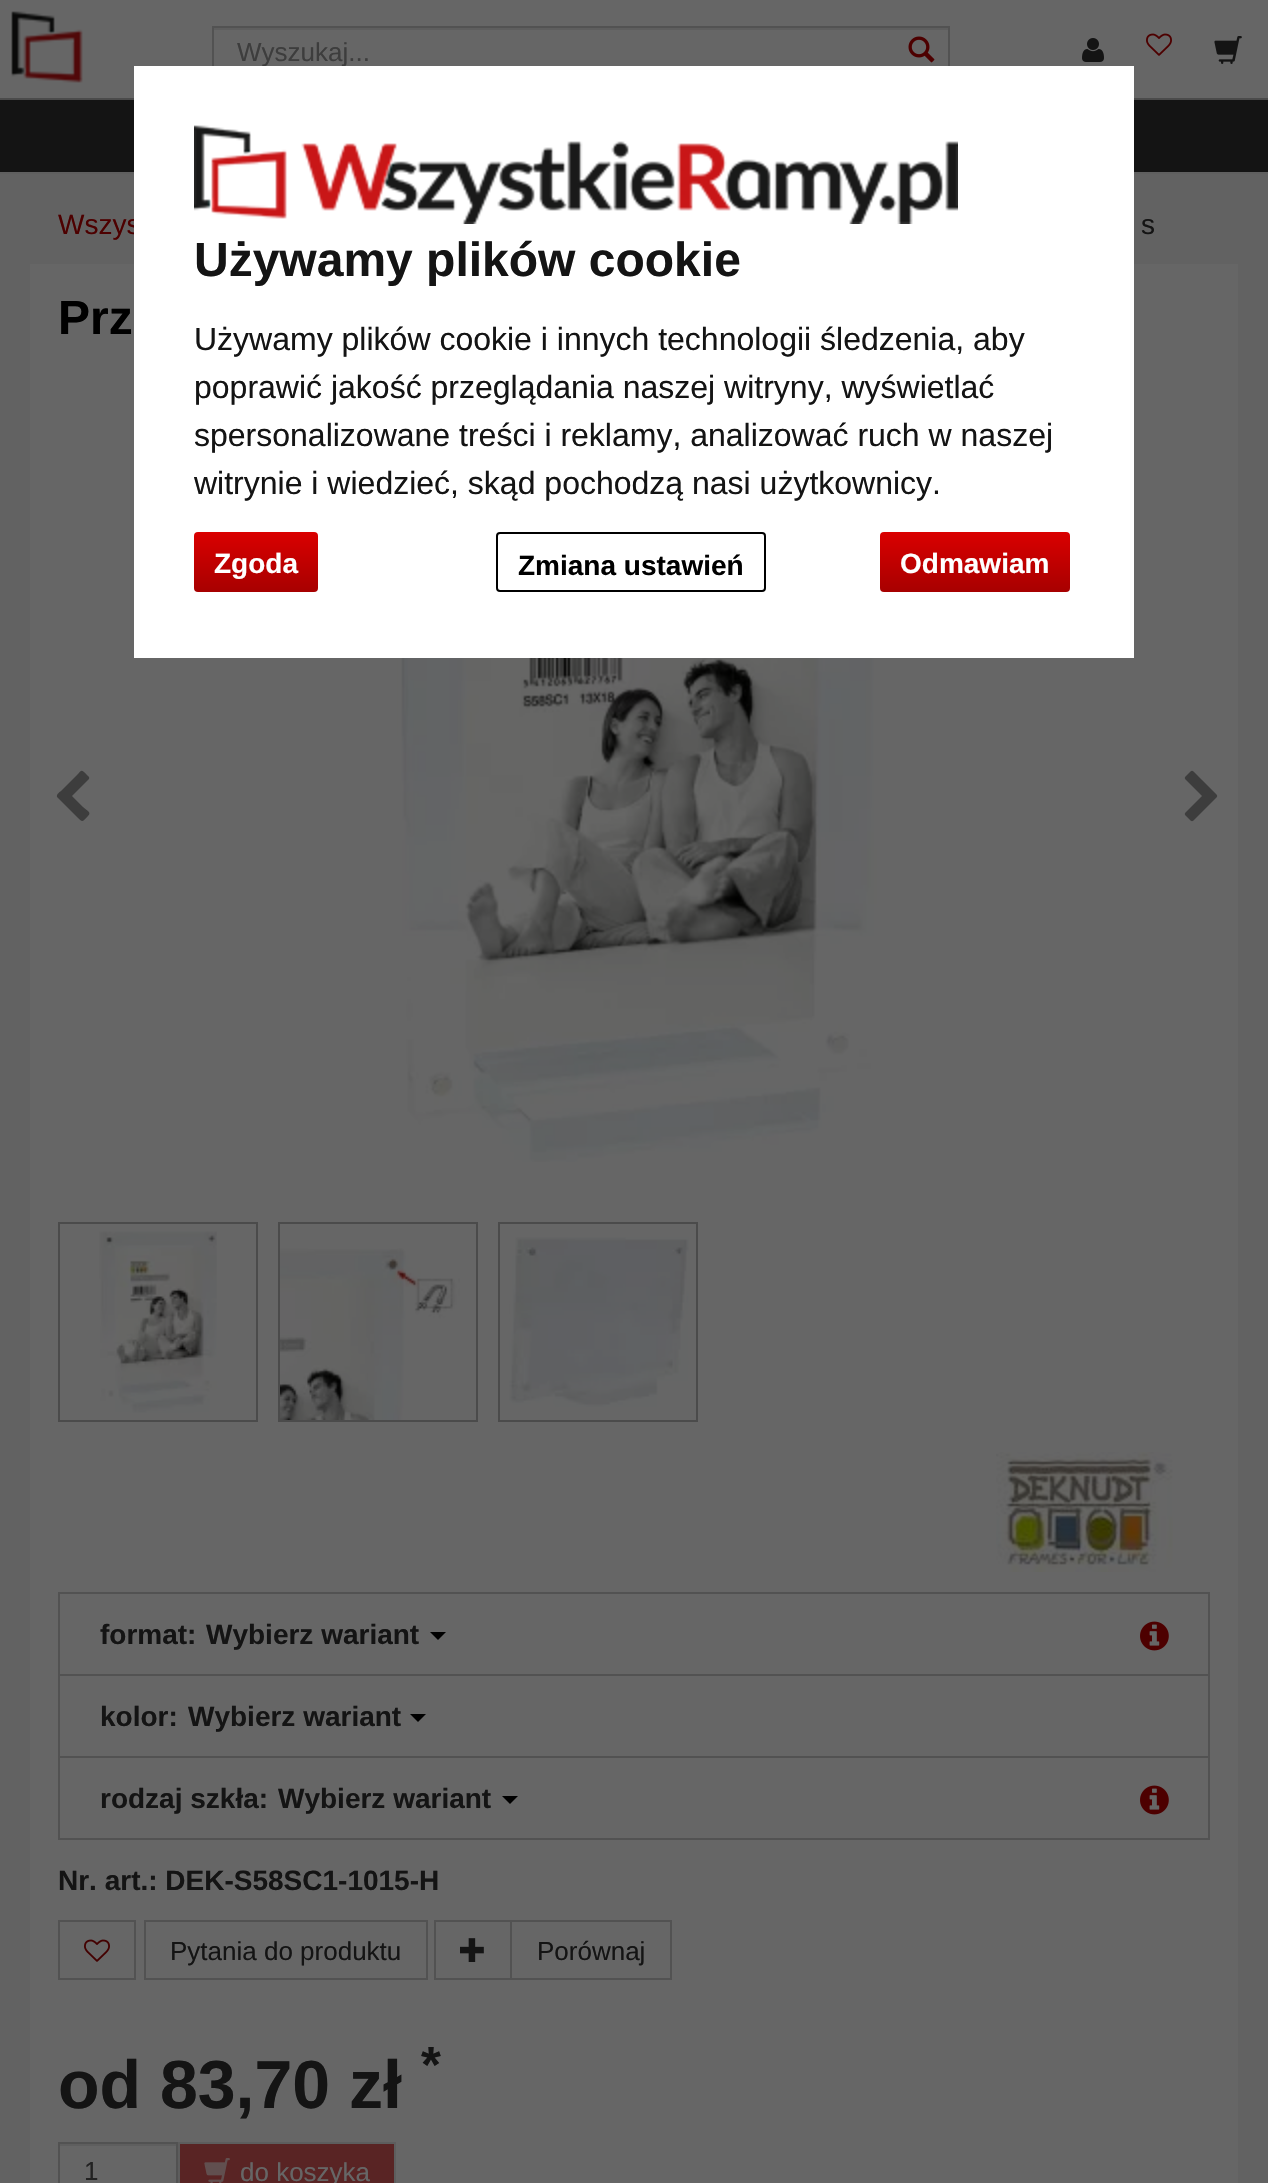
void draw(SkCanvas* canvas) {
	SkPaint fill;
	fill.setAntiAlias(true);
	auto makeFont = [&](const char* family, int weight, float size, bool italic = false) {
		SkFontStyle style(weight, SkFontStyle::kNormal_Width,
			italic ? SkFontStyle::kItalic_Slant : SkFontStyle::kUpright_Slant);
		SkFont result(fontMgr->matchFamilyStyle(family, style), size);
		result.setSubpixel(true);
		return result;
	};
	auto text = [&](const char* s, float x, float y, const SkFont& font) {
		canvas->drawString(s, x, y, font, fill);
	};
	auto box = [&](float l, float t, float r, float b) {
		canvas->drawRect(SkRect::MakeLTRB(l, t, r, b), fill);
	};
	auto roundBox = [&](float l, float t, float r, float b, float radius) {
		canvas->drawRoundRect(SkRect::MakeLTRB(l, t, r, b), radius, radius, fill);
	};
	auto picture = [&](const char* path, float l, float t, float r, float b) {
		auto image = SkImages::DeferredFromEncodedData(SkData::MakeFromFileName(path));
		canvas->drawImageRect(image, SkRect::MakeLTRB(l, t, r, b), SkSamplingOptions());
	};
	canvas->clear(0xFF626262);
	fill.setColor(0xFF666666);
	box(0, 0, 1268, 98);
	fill.setColor(0xFF4B4B4B);
	box(0, 98, 1268, 100);
	picture("image0.png", 11, 11, 83, 83);
	fill.setColor(0xFF5E5E5E);
	box(214, 28, 948, 30);
	fill.setStyle(SkPaint::kStroke_Style);
	fill.setStrokeWidth(2);
	fill.setColor(0xFF525252);
	canvas->drawRect(SkRect::MakeLTRB(213, 27, 949, 77), fill);
	picture("image1.png", 908, 36, 935, 63);
	picture("image2.png", 1082, 38, 1104, 62);
	picture("image3.png", 1146, 33, 1172, 56);
	picture("image4.png", 1214, 36, 1242, 64);
	fill.setStyle(SkPaint::kFill_Style);
	fill.setColor(0xFF141414);
	box(0, 100, 1268, 172);
	fill.setColor(0xFF5F5F5F);
	box(0, 172, 1268, 174);
	fill.setColor(0xFF666666);
	box(30, 264, 1238, 2183);
	fill.setColor(0xFF3D3D3D);
	canvas->drawPath(SkPathBuilder().moveTo(57, 797).cubicTo(56, 794, 61, 791, 61, 791).lineTo(77, 775).cubicTo(82, 770, 81, 769, 87, 775).cubicTo(88, 776, 90, 777, 89, 779).lineTo(72, 796).lineTo(83, 807).cubicTo(87, 811, 92, 812, 88, 816).cubicTo(82, 822, 83, 823, 77, 817).close().detach(), fill);
	picture("image6.png", 397, 658, 877, 1162);
	picture("image7.png", 1184, 770, 1218, 822);
	fill.setStyle(SkPaint::kStroke_Style);
	fill.setColor(0xFF4B4B4B);
	canvas->drawRect(SkRect::MakeLTRB(59, 1223, 257, 1421), fill);
	picture("image8.png", 99, 1231, 217, 1413);
	canvas->drawRect(SkRect::MakeLTRB(279, 1223, 477, 1421), fill);
	picture("image9.png", 280, 1248, 460, 1420);
	canvas->drawRect(SkRect::MakeLTRB(499, 1223, 697, 1421), fill);
	picture("image10.png", 509, 1237, 689, 1407);
	picture("image11.png", 996, 1452, 1173, 1572);
	fill.setStyle(SkPaint::kFill_Style);
	fill.setColor(0xFF525252);
	box(58, 1592, 1210, 1594);
	box(1208, 1592, 1210, 1674);
	box(58, 1592, 60, 1674);
	fill.setColor(0xFF000000);
	canvas->drawPath(SkPathBuilder().moveTo(430, 1632).lineTo(446, 1632).lineTo(438, 1640).close().detach(), fill);
	picture("image12.png", 1140, 1621, 1169, 1651);
	fill.setColor(0xFF525252);
	box(58, 1674, 1210, 1676);
	box(1208, 1674, 1210, 1756);
	box(58, 1674, 60, 1756);
	fill.setColor(0xFF000000);
	canvas->drawPath(SkPathBuilder().moveTo(410, 1714).lineTo(426, 1714).lineTo(418, 1722).close().detach(), fill);
	fill.setStyle(SkPaint::kStroke_Style);
	fill.setColor(0xFF525252);
	canvas->drawRect(SkRect::MakeLTRB(59, 1757, 1209, 1839), fill);
	fill.setStyle(SkPaint::kFill_Style);
	fill.setColor(0xFF000000);
	canvas->drawPath(SkPathBuilder().moveTo(502, 1796).lineTo(518, 1796).lineTo(510, 1804).close().detach(), fill);
	picture("image12.png", 1140, 1785, 1169, 1815);
	fill.setStyle(SkPaint::kStroke_Style);
	fill.setColor(0xFF525252);
	canvas->drawRect(SkRect::MakeLTRB(59, 1921, 135, 1979), fill);
	picture("image13.png", 84, 1939, 110, 1962);
	canvas->drawRect(SkRect::MakeLTRB(145, 1921, 427, 1979), fill);
	canvas->drawRect(SkRect::MakeLTRB(435, 1921, 511, 1979), fill);
	picture("image14.png", 460, 1938, 484, 1962);
	canvas->drawRect(SkRect::MakeLTRB(511, 1921, 671, 1979), fill);
	fill.setStyle(SkPaint::kFill_Style);
	fill.setColor(0xFF5E5E5E);
	box(60, 2144, 176, 2146);
	fill.setStyle(SkPaint::kStroke_Style);
	fill.setColor(0xFF525252);
	canvas->drawRect(SkRect::MakeLTRB(59, 2143, 177, 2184), fill);
	fill.setStyle(SkPaint::kFill_Style);
	fill.setColor(0xFF592424);
	canvas->drawRect(SkRect::MakeLTRB(179, 2143, 395, 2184), fill);
	fill.setStyle(SkPaint::kStroke_Style);
	fill.setColor(0xFF5D5D5D);
	canvas->drawRect(SkRect::MakeLTRB(179, 2143, 395, 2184), fill);
	picture("image15.png", 204, 2158, 230, 2183);
	auto font1 = makeFont("Liberation Sans", 400, 26);
	fill.setStyle(SkPaint::kFill_Style);
	fill.setColor(0xFF3D3D3D);
	text("Wyszukaj...", 237, 61, font1);
	auto font2 = makeFont("Liberation Sans", 400, 28);
	fill.setColor(0xFF4D0000);
	text("Wszys", 58, 234, font2);
	fill.setColor(0xFF141414);
	text("s", 1141, 234, font2);
	fill.setColor(0xFFFFFFFF);
	box(134, 66, 1134, 658);
	picture("image5.png", 194, 125, 958, 224);
	auto font3 = makeFont("Liberation Sans", 700, 48);
	fill.setColor(0xFF141414);
	text("Używamy plików cookie", 194, 276, font3);
	auto font4 = makeFont("Liberation Sans", 400, 32);
	text("Używamy plików cookie i innych technologii śledzenia, aby", 194, 350, font4);
	text("poprawić jakość przeglądania naszej witryny, wyświetlać", 194, 398, font4);
	text("spersonalizowane treści i reklamy, analizować ruch w naszej", 194, 446, font4);
	text("witrynie i wiedzieć, skąd pochodzą nasi użytkownicy.", 194, 494, font4);
	{
		const SkColor colors[] = {0xFFDA0000, 0xFFA70000};
		const float stops[] = {0, 1};
		const SkPoint ends[] = {{256, 532}, {256, 592}};
		fill.setShader(SkGradientShader::MakeLinear(ends, colors, stops, 2, SkTileMode::kClamp));
		fill.setAlpha(255);
	}
	roundBox(194, 532, 318, 592, 4);
	auto font5 = makeFont("Liberation Sans", 700, 28);
	fill.setShader(nullptr);
	fill.setColor(0xFFFFFFFF);
	text("Zgoda", 214, 573, font5);
	fill.setStyle(SkPaint::kStroke_Style);
	fill.setColor(0xFF000000);
	canvas->drawRoundRect(SkRect::MakeLTRB(497, 533, 765, 591), 3, 3, fill);
	fill.setStyle(SkPaint::kFill_Style);
	text("Zmiana ustawień", 518, 575, font5);
	{
		const SkColor colors[] = {0xFFDA0000, 0xFFA70000};
		const float stops[] = {0, 1};
		const SkPoint ends[] = {{975, 532}, {975, 592}};
		fill.setShader(SkGradientShader::MakeLinear(ends, colors, stops, 2, SkTileMode::kClamp));
		fill.setAlpha(255);
	}
	roundBox(880, 532, 1070, 592, 4);
	fill.setShader(nullptr);
	fill.setColor(0xFFFFFFFF);
	text("Odmawiam", 900, 573, font5);
	fill.setColor(0xFF000000);
	text("Prz", 58, 334, font3);
	fill.setColor(0xFF141414);
	text("format:", 100, 1644, font5);
	text("Wybierz wariant", 206, 1644, font5);
	text("kolor:", 100, 1726, font5);
	text("Wybierz wariant", 188, 1726, font5);
	text("rodzaj szkła:", 100, 1808, font5);
	text("Wybierz wariant", 278, 1808, font5);
	text("Nr. art.: DEK-S58SC1-1015-H", 58, 1890, font5);
	text("Pytania do produktu", 170, 1960, font1);
	text("Porównaj", 537, 1960, font1);
	auto font6 = makeFont("Liberation Sans", 700, 51);
	text("*", 421, 2082, font6);
	auto font7 = makeFont("Liberation Sans", 700, 68);
	text("od 83,70 zł", 58, 2108, font7);
	fill.setColor(0xFF222222);
	text("1", 84, 2180, font1);
	fill.setColor(0xFF666666);
	text("do koszyka", 240, 2181, font1);
}
